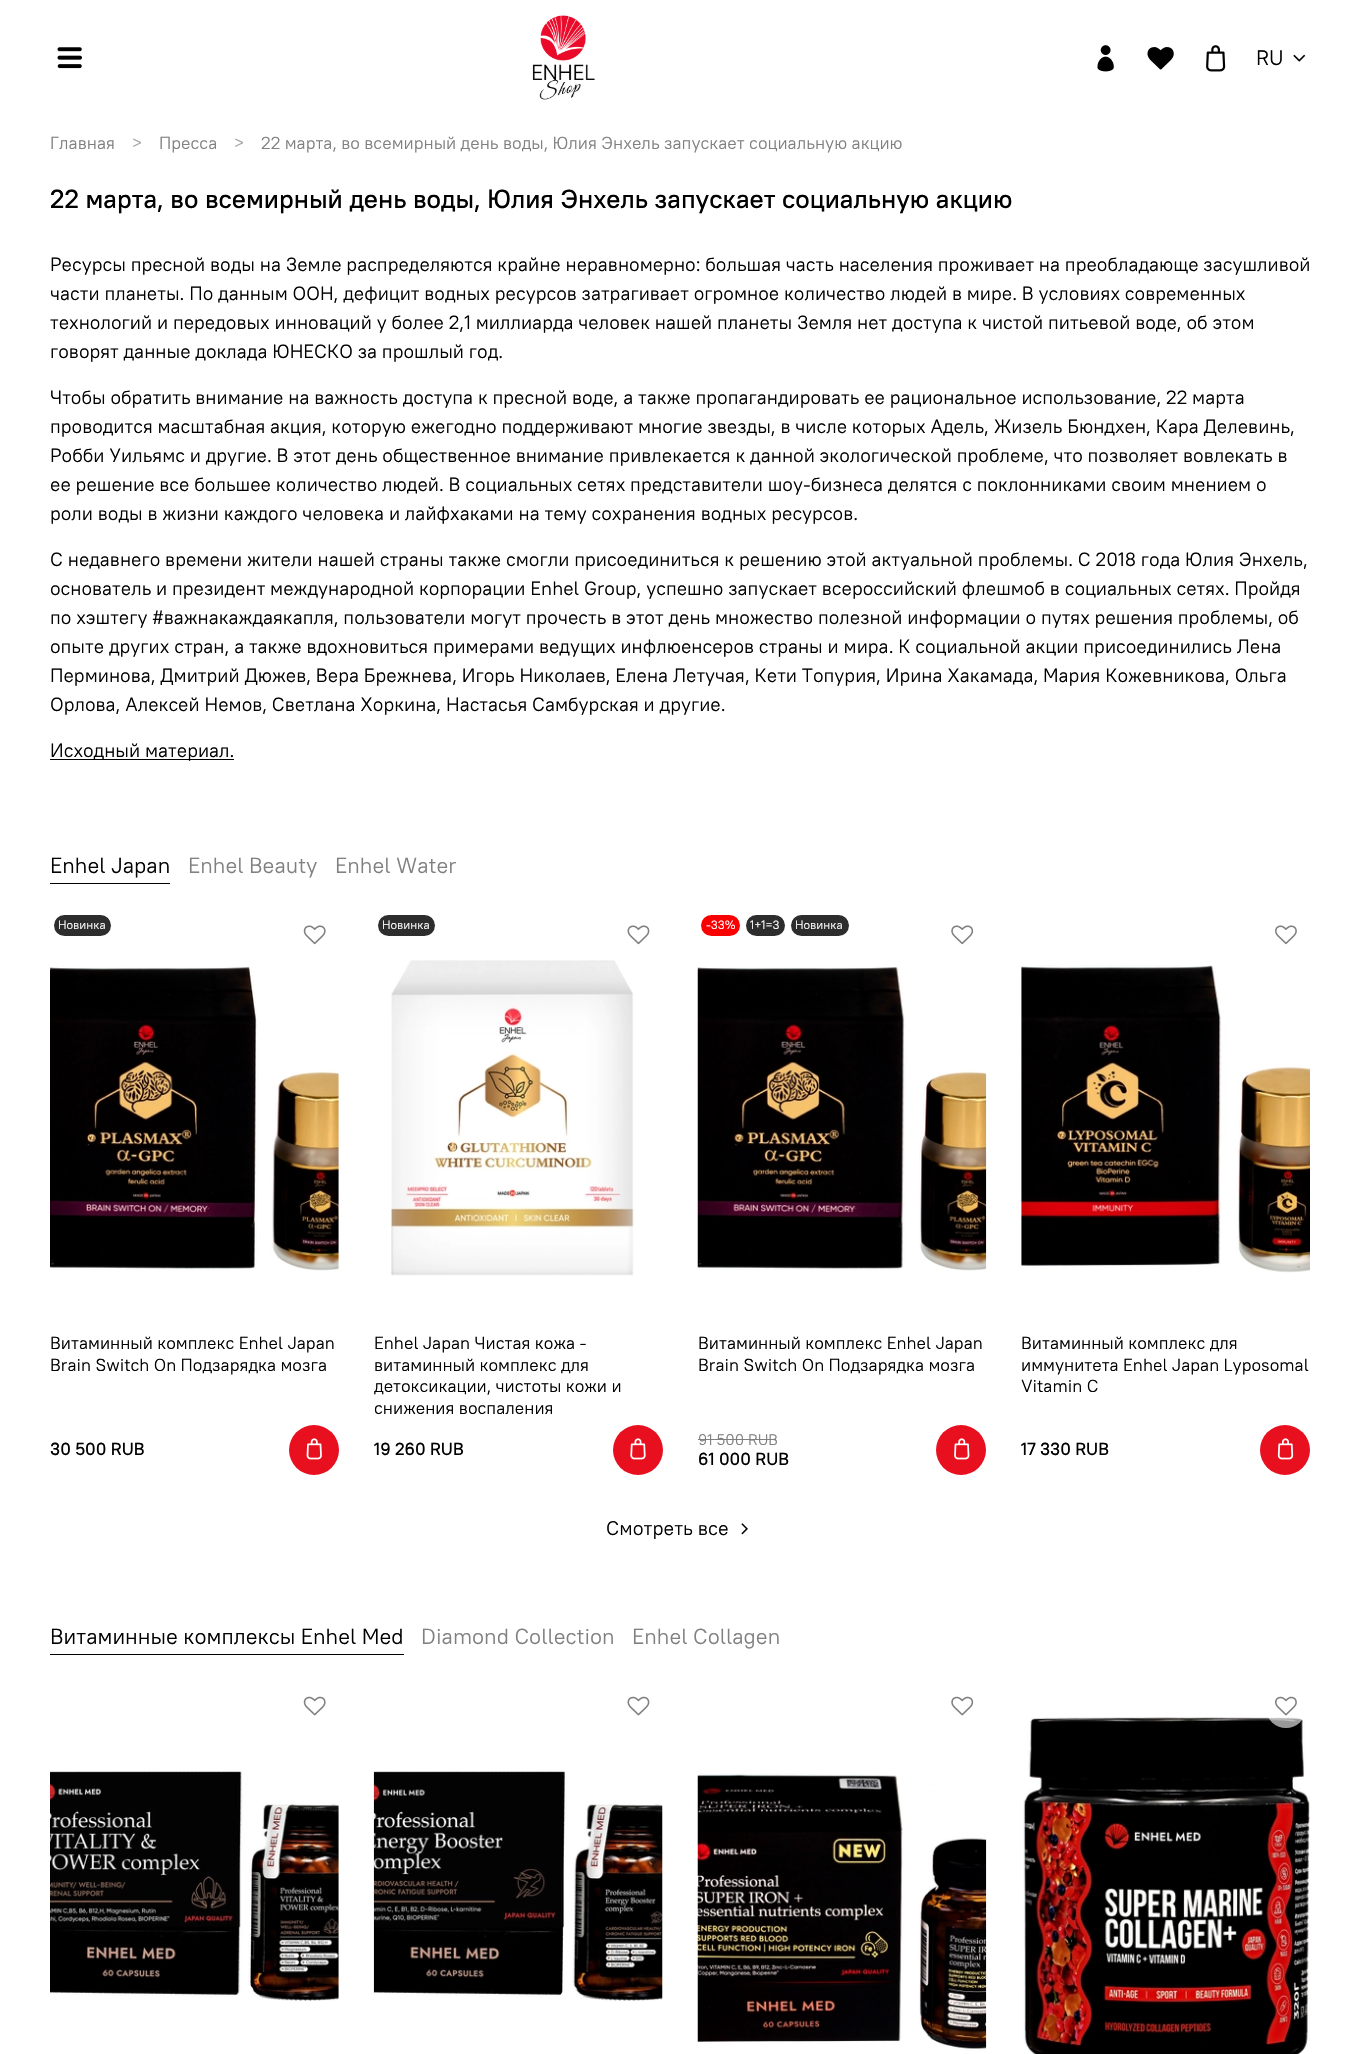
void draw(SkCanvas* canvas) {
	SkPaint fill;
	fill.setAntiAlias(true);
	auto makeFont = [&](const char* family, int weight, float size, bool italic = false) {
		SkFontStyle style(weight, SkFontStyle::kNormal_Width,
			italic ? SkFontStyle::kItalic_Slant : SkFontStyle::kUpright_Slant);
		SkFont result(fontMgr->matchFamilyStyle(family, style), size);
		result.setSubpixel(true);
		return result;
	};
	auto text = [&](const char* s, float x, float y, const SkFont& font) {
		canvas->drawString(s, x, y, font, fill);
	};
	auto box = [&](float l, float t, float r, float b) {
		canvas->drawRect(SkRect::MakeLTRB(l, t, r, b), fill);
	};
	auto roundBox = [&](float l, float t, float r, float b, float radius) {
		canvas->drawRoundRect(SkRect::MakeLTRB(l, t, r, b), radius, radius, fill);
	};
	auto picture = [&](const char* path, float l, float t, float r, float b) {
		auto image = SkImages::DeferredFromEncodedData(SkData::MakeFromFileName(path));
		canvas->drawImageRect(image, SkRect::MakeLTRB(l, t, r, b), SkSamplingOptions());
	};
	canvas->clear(0xFFFFFFFF);
	picture("image0.png", 57, 47, 82, 69);
	picture("image1.png", 532, 15, 595, 100);
	picture("image2.png", 1097, 45, 1114, 72);
	picture("image3.png", 1147, 47, 1174, 70);
	picture("image4.png", 1206, 45, 1226, 72);
	picture("image5.png", 1293, 54, 1306, 62);
	fill.setColor(0xFF000000);
	box(50, 759, 234, 760);
	box(50, 883, 170, 884);
	fill.setColor(0xFF2D2D2D);
	roundBox(54, 915, 111, 936, 10.5f);
	picture("image6.png", 303, 925, 326, 945);
	picture("image7.png", 50, 966, 339, 1271);
	fill.setColor(0xFFE80F1E);
	canvas->drawCircle(314, 1450, 25, fill);
	picture("image8.png", 306, 1438, 322, 1460);
	fill.setColor(0xFF2D2D2D);
	roundBox(378, 915, 435, 936, 10.5f);
	picture("image9.png", 627, 925, 650, 945);
	picture("image10.png", 390, 960, 634, 1276);
	fill.setColor(0xFFE80F1E);
	canvas->drawCircle(638, 1450, 25, fill);
	picture("image11.png", 630, 1438, 646, 1460);
	fill.setColor(0xFFFA0000);
	roundBox(701, 915, 740, 936, 10.5f);
	fill.setColor(0xFF2D2D2D);
	roundBox(746, 915, 785, 936, 10.5f);
	roundBox(791, 915, 849, 936, 10.5f);
	picture("image12.png", 951, 925, 974, 945);
	picture("image13.png", 697, 966, 987, 1271);
	fill.setColor(0xFF808080);
	box(698, 1439, 776, 1440);
	fill.setColor(0xFFE80F1E);
	canvas->drawCircle(961, 1450, 25, fill);
	picture("image14.png", 954, 1438, 970, 1460);
	picture("image15.png", 1275, 925, 1297, 945);
	picture("image16.png", 1021, 965, 1310, 1273);
	canvas->drawCircle(1285, 1450, 25, fill);
	picture("image17.png", 1277, 1438, 1294, 1460);
	picture("image18.png", 741, 1523, 748, 1535);
	fill.setColor(0xFF000000);
	box(50, 1654, 404, 1655);
	picture("image19.png", 303, 1696, 326, 1716);
	picture("image20.png", 50, 1771, 339, 2001);
	picture("image21.png", 627, 1696, 650, 1716);
	picture("image22.png", 373, 1771, 663, 2001);
	picture("image23.png", 951, 1696, 974, 1716);
	picture("image24.png", 697, 1773, 987, 2051);
	picture("image26.png", 1023, 1717, 1310, 2054);
	fill.setColor(0x99FFFFFF);
	canvas->drawCircle(1286, 1708, 20, fill);
	picture("image25.png", 1275, 1696, 1297, 1716);
	auto font1 = makeFont("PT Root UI", 400, 21);
	fill.setColor(0xFF000000);
	text("RU", 1256, 65, font1);
	auto font2 = makeFont("PT Root UI", 400, 17.5f);
	fill.setColor(0xFF808080);
	text("Главная", 50, 149, font2);
	fill.setColor(0xFFA6A6A6);
	text(">", 132, 149, font2);
	fill.setColor(0xFF808080);
	text("Пресса", 159, 149, font2);
	fill.setColor(0xFFA6A6A6);
	text(">", 234, 149, font2);
	fill.setColor(0xFF808080);
	text("22 марта, во всемирный день воды, Юлия Энхель запускает социальную акцию", 261, 149, font2);
	auto font3 = makeFont("PT Root UI", 500, 26.25f);
	fill.setColor(0xFF000000);
	text("22 марта, во всемирный день воды, Юлия Энхель запускает социальную акцию", 50, 208, font3);
	auto font4 = makeFont("PT Root UI", 400, 19.25f);
	text("Ресурсы пресной воды на Земле распределяются крайне неравномерно: большая часть населения проживает на преобладающе засушливой", 50, 271, font4);
	text("части планеты. По данным ООН, дефицит водных ресурсов затрагивает огромное количество людей в мире. В условиях современных", 50, 300, font4);
	text("технологий и передовых инноваций у более 2,1 миллиарда человек нашей планеты Земля нет доступа к чистой питьевой воде, об этом", 50, 329, font4);
	text("говорят данные доклада ЮНЕСКО за прошлый год.", 50, 358, font4);
	text("Чтобы обратить внимание на важность доступа к пресной воде, а также пропагандировать ее рациональное использование, 22 марта", 50, 404, font4);
	text("проводится масштабная акция, которую ежегодно поддерживают многие звезды, в числе которых Адель, Жизель Бюндхен, Кара Делевинь,", 50, 433, font4);
	text("Робби Уильямс и другие. В этот день общественное внимание привлекается к данной экологической проблеме, что позволяет вовлекать в", 50, 462, font4);
	text("ее решение все большее количество людей. В социальных сетях представители шоу-бизнеса делятся с поклонниками своим мнением о", 50, 491, font4);
	text("роли воды в жизни каждого человека и лайфхаками на тему сохранения водных ресурсов.", 50, 520, font4);
	text("С недавнего времени жители нашей страны также смогли присоединиться к решению этой актуальной проблемы. С 2018 года Юлия Энхель,", 50, 566, font4);
	text("основатель и президент международной корпорации Enhel Group, успешно запускает всероссийский флешмоб в социальных сетях. Пройдя", 50, 595, font4);
	text("по хэштегу #важнакаждаякапля, пользователи могут прочесть в этот день множество полезной информации о путях решения проблемы, об", 50, 624, font4);
	text("опыте других стран, а также вдохновиться примерами ведущих инфлюенсеров страны и мира. К социальной акции присоединились Лена", 50, 653, font4);
	text("Перминова, Дмитрий Дюжев, Вера Брежнева, Игорь Николаев, Елена Летучая, Кети Топурия, Ирина Хакамада, Мария Кожевникова, Ольга", 50, 682, font4);
	text("Орлова, Алексей Немов, Светлана Хоркина, Настасья Самбурская и другие.", 50, 711, font4);
	text("Исходный материал.", 50, 757, font4);
	auto font5 = makeFont("PT Root UI", 400, 21.9f);
	text("Enhel Japan", 50, 873, font5);
	fill.setColor(0xFF808080);
	text("Enhel Beauty", 188, 873, font5);
	text("Enhel Water", 335, 873, font5);
	auto font6 = makeFont("PT Root UI", 400, 12);
	fill.setColor(0xFFFFFFFF);
	text("Новинка", 58, 929, font6);
	fill.setColor(0xFF000000);
	text("Витаминный комплекс Enhel Japan", 50, 1349, font2);
	text("Brain Switch On Подзарядка мозга", 50, 1371, font2);
	auto font7 = makeFont("PT Root UI", 500, 17.5f);
	text("30 500 RUB", 50, 1455, font7);
	fill.setColor(0xFFFFFFFF);
	text("Новинка", 382, 929, font6);
	fill.setColor(0xFF000000);
	text("Enhel Japan Чистая кожа -", 374, 1349, font2);
	text("витаминный комплекс для", 374, 1371, font2);
	text("детоксикации, чистоты кожи и", 374, 1392, font2);
	text("снижения воспаления", 374, 1414, font2);
	text("19 260 RUB", 374, 1455, font7);
	fill.setColor(0xFFFFFFFF);
	text("-33%", 706, 929, font6);
	text("1+1=3", 750, 929, font6);
	text("Новинка", 795, 929, font6);
	fill.setColor(0xFF000000);
	text("Витаминный комплекс Enhel Japan", 698, 1349, font2);
	text("Brain Switch On Подзарядка мозга", 698, 1371, font2);
	auto font8 = makeFont("PT Root UI", 400, 15.5f);
	fill.setColor(0xFF808080);
	text("91 500 RUB", 698, 1445, font8);
	fill.setColor(0xFF000000);
	text("61 000 RUB", 698, 1465, font7);
	text("Витаминный комплекс для", 1021, 1349, font2);
	text("иммунитета Enhel Japan Lyposomal", 1021, 1371, font2);
	text("Vitamin C", 1021, 1392, font2);
	text("17 330 RUB", 1021, 1455, font7);
	auto font9 = makeFont("PT Root UI", 400, 19.75f);
	text("Смотреть все", 606, 1535, font9);
	text("Витаминные комплексы Enhel Med", 50, 1644, font5);
	fill.setColor(0xFF808080);
	text("Diamond Collection", 421, 1644, font5);
	text("Enhel Collagen", 632, 1644, font5);
}
